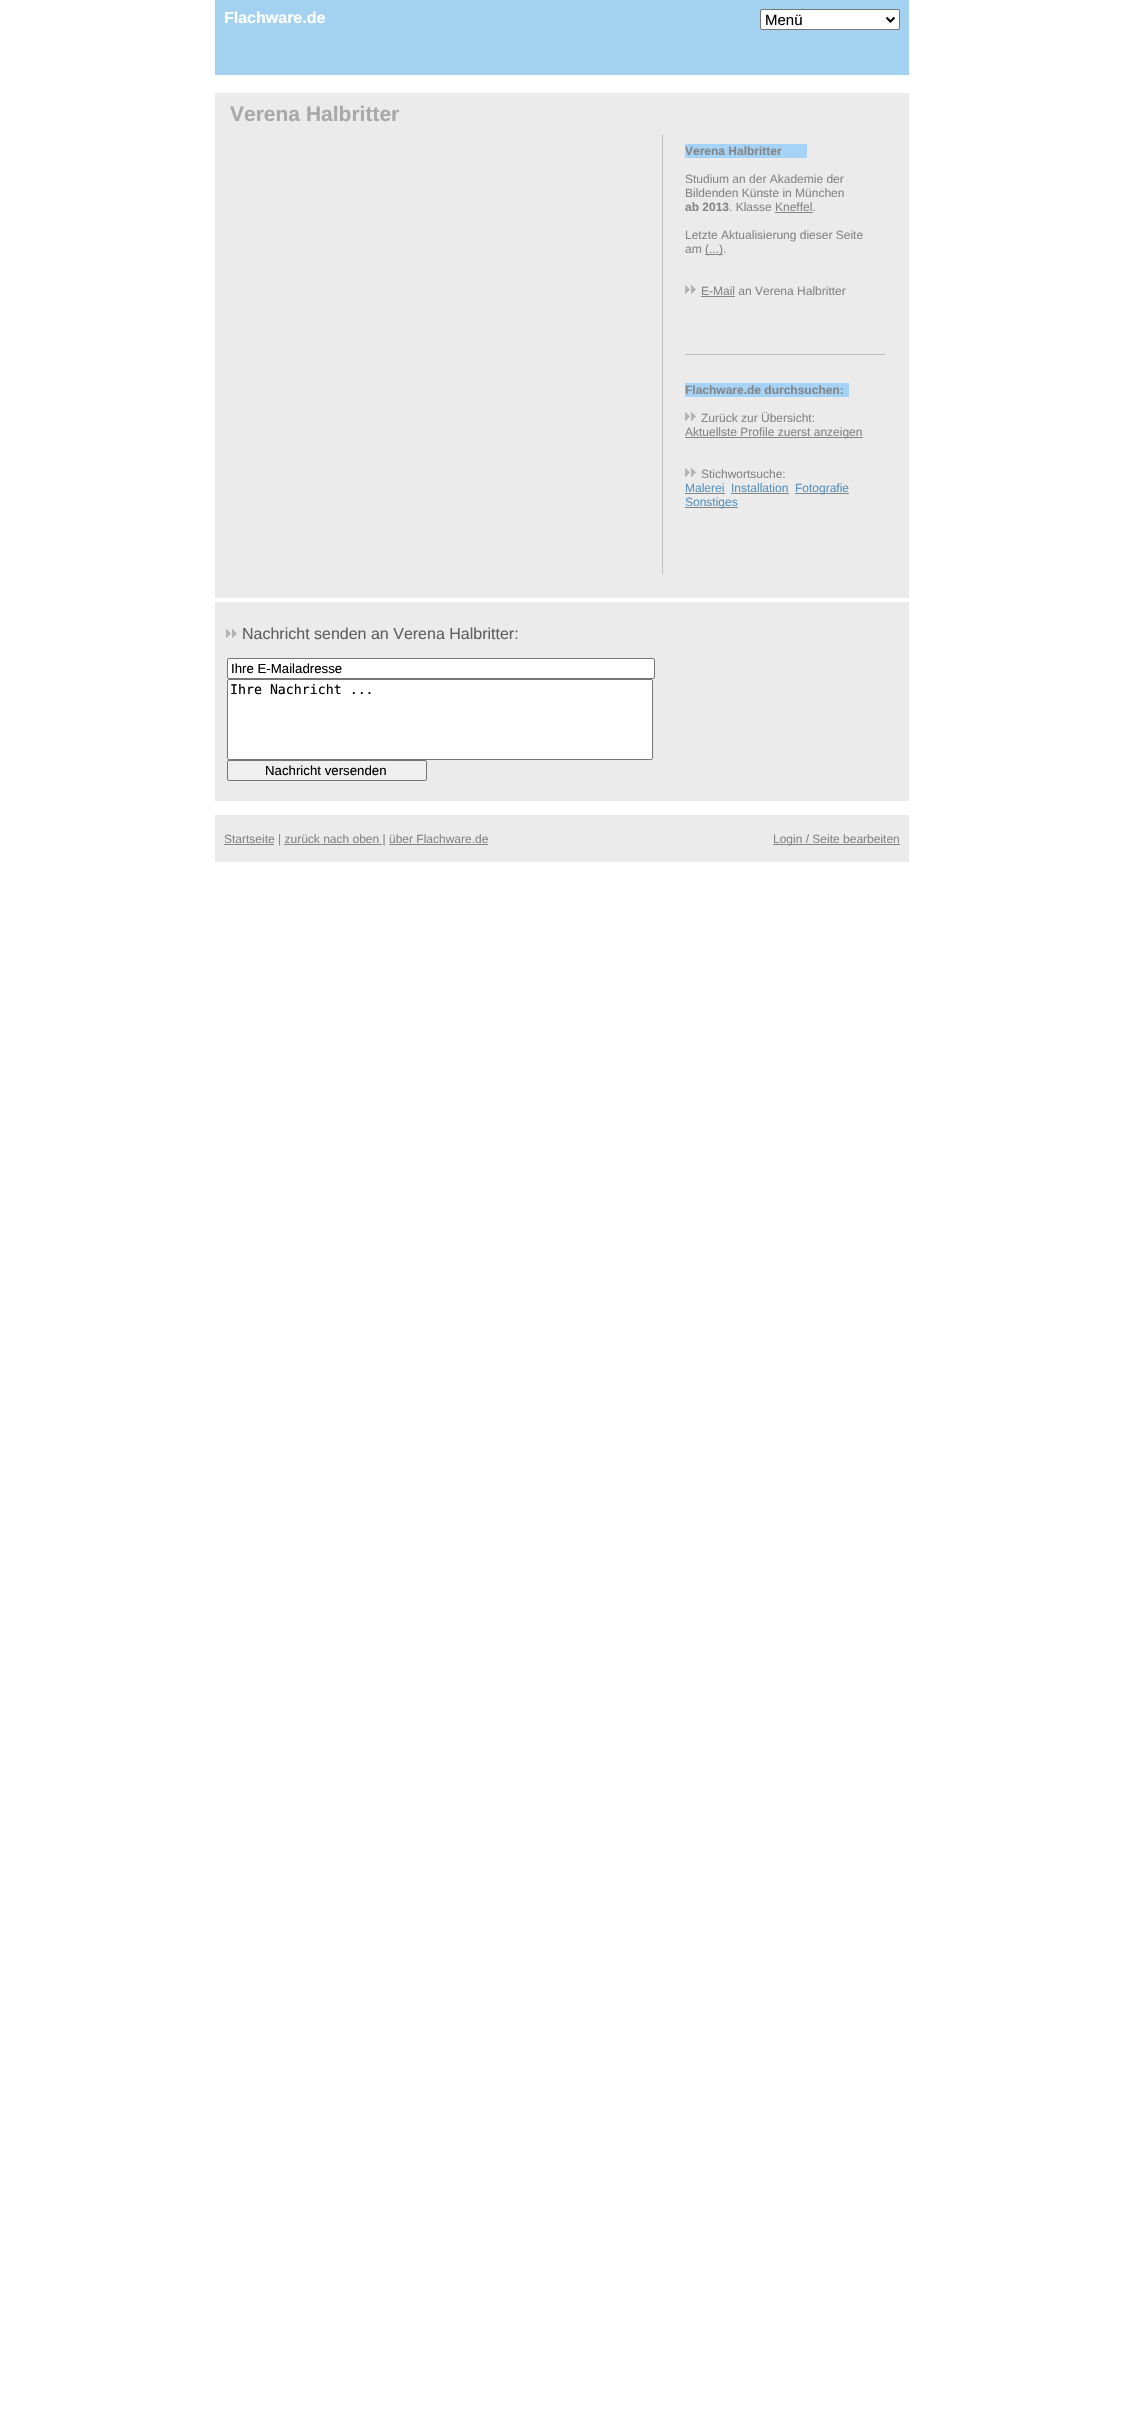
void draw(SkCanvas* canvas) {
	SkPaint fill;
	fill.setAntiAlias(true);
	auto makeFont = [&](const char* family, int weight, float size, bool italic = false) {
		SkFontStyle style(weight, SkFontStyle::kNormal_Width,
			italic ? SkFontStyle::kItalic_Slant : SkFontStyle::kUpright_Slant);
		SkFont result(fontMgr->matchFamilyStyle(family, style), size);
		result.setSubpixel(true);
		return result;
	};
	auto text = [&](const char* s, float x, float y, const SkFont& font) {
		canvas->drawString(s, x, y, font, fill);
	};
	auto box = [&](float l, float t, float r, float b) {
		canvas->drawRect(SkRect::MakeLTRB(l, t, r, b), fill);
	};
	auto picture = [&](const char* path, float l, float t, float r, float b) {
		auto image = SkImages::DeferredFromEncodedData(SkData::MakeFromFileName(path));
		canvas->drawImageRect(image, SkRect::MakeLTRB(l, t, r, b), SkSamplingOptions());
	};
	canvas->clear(0xFFFFFFFF);
	fill.setColor(0xFFA3D2F0);
	box(215, 0, 909, 75);
	fill.setColor(0xFFFFFFFF);
	canvas->drawRoundRect(SkRect::MakeLTRB(760.5f, 9.5f, 899.5f, 29.5f), 1.5f, 1.5f, fill);
	fill.setStyle(SkPaint::kStroke_Style);
	fill.setStrokeWidth(1);
	fill.setColor(0xFF767676);
	canvas->drawRoundRect(SkRect::MakeLTRB(760.5f, 9.5f, 899.5f, 29.5f), 1.5f, 1.5f, fill);
	fill.setStrokeWidth(2);
	fill.setColor(0xFF000000);
	canvas->drawPath(SkPathBuilder().moveTo(886.5f, 17.5f).lineTo(890.5f, 21.5f).lineTo(894.5f, 17.5f).detach(), fill);
	fill.setStyle(SkPaint::kFill_Style);
	fill.setColor(0xFFEBEBEB);
	box(215, 93, 909, 598);
	fill.setColor(0xFFBFBFBF);
	box(662, 135, 663, 574);
	fill.setColor(0xFFA5D3F7);
	box(685, 144, 807, 158);
	fill.setColor(0xFF858585);
	box(775, 212, 813, 213);
	box(705, 254, 723, 255);
	picture("image0.png", 685, 285, 696, 294);
	box(701, 296, 735, 297);
	fill.setColor(0xFFBFBFBF);
	box(685, 354, 885, 355);
	fill.setColor(0xFFA5D3F7);
	box(685, 383, 849, 397);
	picture("image0.png", 685, 412, 696, 421);
	fill.setColor(0xFF858585);
	box(685, 437, 863, 438);
	picture("image0.png", 685, 468, 696, 477);
	box(685, 493, 725, 494);
	box(731, 493, 789, 494);
	box(795, 493, 849, 494);
	box(685, 507, 738, 508);
	fill.setColor(0xFFEBEBEB);
	box(215, 602, 909, 801);
	picture("image0.png", 226, 629, 237, 638);
	fill.setColor(0xFFFFFFFF);
	canvas->drawRoundRect(SkRect::MakeLTRB(227.5f, 658.5f, 654.5f, 678.5f), 1.5f, 1.5f, fill);
	fill.setStyle(SkPaint::kStroke_Style);
	fill.setStrokeWidth(1);
	fill.setColor(0xFF767676);
	canvas->drawRoundRect(SkRect::MakeLTRB(227.5f, 658.5f, 654.5f, 678.5f), 1.5f, 1.5f, fill);
	fill.setStyle(SkPaint::kFill_Style);
	fill.setColor(0xFFFFFFFF);
	canvas->drawRoundRect(SkRect::MakeLTRB(227.5f, 679.5f, 652.5f, 759.5f), 1.5f, 1.5f, fill);
	fill.setStyle(SkPaint::kStroke_Style);
	fill.setColor(0xFF767676);
	canvas->drawRoundRect(SkRect::MakeLTRB(227.5f, 679.5f, 652.5f, 759.5f), 1.5f, 1.5f, fill);
	fill.setStyle(SkPaint::kFill_Style);
	fill.setColor(0xFFEFEFEF);
	canvas->drawRoundRect(SkRect::MakeLTRB(227.5f, 760.5f, 426.5f, 780.5f), 1.5f, 1.5f, fill);
	fill.setStyle(SkPaint::kStroke_Style);
	fill.setColor(0xFF767676);
	canvas->drawRoundRect(SkRect::MakeLTRB(227.5f, 760.5f, 426.5f, 780.5f), 1.5f, 1.5f, fill);
	fill.setStyle(SkPaint::kFill_Style);
	fill.setColor(0xFFEBEBEB);
	box(215, 815, 909, 862);
	fill.setColor(0xFF858585);
	box(224, 844, 274, 845);
	box(284, 844, 382, 845);
	box(389, 844, 488, 845);
	box(773, 844, 900, 845);
	auto font1 = makeFont("Liberation Sans", 700, 16);
	fill.setColor(0xFFFFFFFF);
	text("Flachware.de", 224, 23, font1);
	auto font2 = makeFont("Liberation Sans", 400, 15);
	fill.setColor(0xFF000000);
	text("Menü", 765, 25, font2);
	auto font3 = makeFont("Liberation Sans", 700, 21);
	fill.setColor(0xFFA8A8A8);
	text("Verena Halbritter", 230, 121, font3);
	auto font4 = makeFont("Liberation Sans", 700, 12);
	fill.setColor(0xFF858585);
	text("Verena Halbritter", 685, 155, font4);
	auto font5 = makeFont("Liberation Sans", 400, 12);
	text("Studium an der Akademie der", 685, 183, font5);
	text("Bildenden Künste in München", 685, 197, font5);
	text("ab 2013", 685, 211, font4);
	text(". Klasse Kneffel.", 729, 211, font5);
	text("Letzte Aktualisierung dieser Seite", 685, 239, font5);
	text("am", 685, 253, font5);
	text("(...).", 705, 253, font5);
	text("E-Mail an Verena Halbritter", 701, 295, font5);
	text("Flachware.de durchsuchen:", 685, 394, font4);
	text("Zurück zur Übersicht:", 701, 422, font5);
	text("Aktuellste Profile zuerst anzeigen", 685, 436, font5);
	text("Stichwortsuche:", 701, 478, font5);
	fill.setColor(0xFF5892C0);
	text("Malerei", 685, 492, font5);
	text("Installation", 731, 492, font5);
	text("Fotografie", 795, 492, font5);
	text("Sonstiges", 685, 506, font5);
	auto font6 = makeFont("Liberation Sans", 400, 16);
	fill.setColor(0xFF5F5F5F);
	text("Nachricht senden an Verena Halbritter:", 242, 639, font6);
	auto font7 = makeFont("Liberation Sans", 400, 13.25f);
	fill.setColor(0xFF000000);
	text("Ihre E-Mailadresse", 231, 673, font7);
	auto font8 = makeFont("DejaVu Sans Mono", 400, 13.25f);
	text("Ihre Nachricht ...", 230, 694, font8);
	text("Nachricht versenden", 265, 775, font7);
	fill.setColor(0xFF858585);
	text("Startseite | zurück nach oben | über Flachware.de", 224, 843, font5);
	text("Login / Seite bearbeiten", 773, 843, font5);
}
